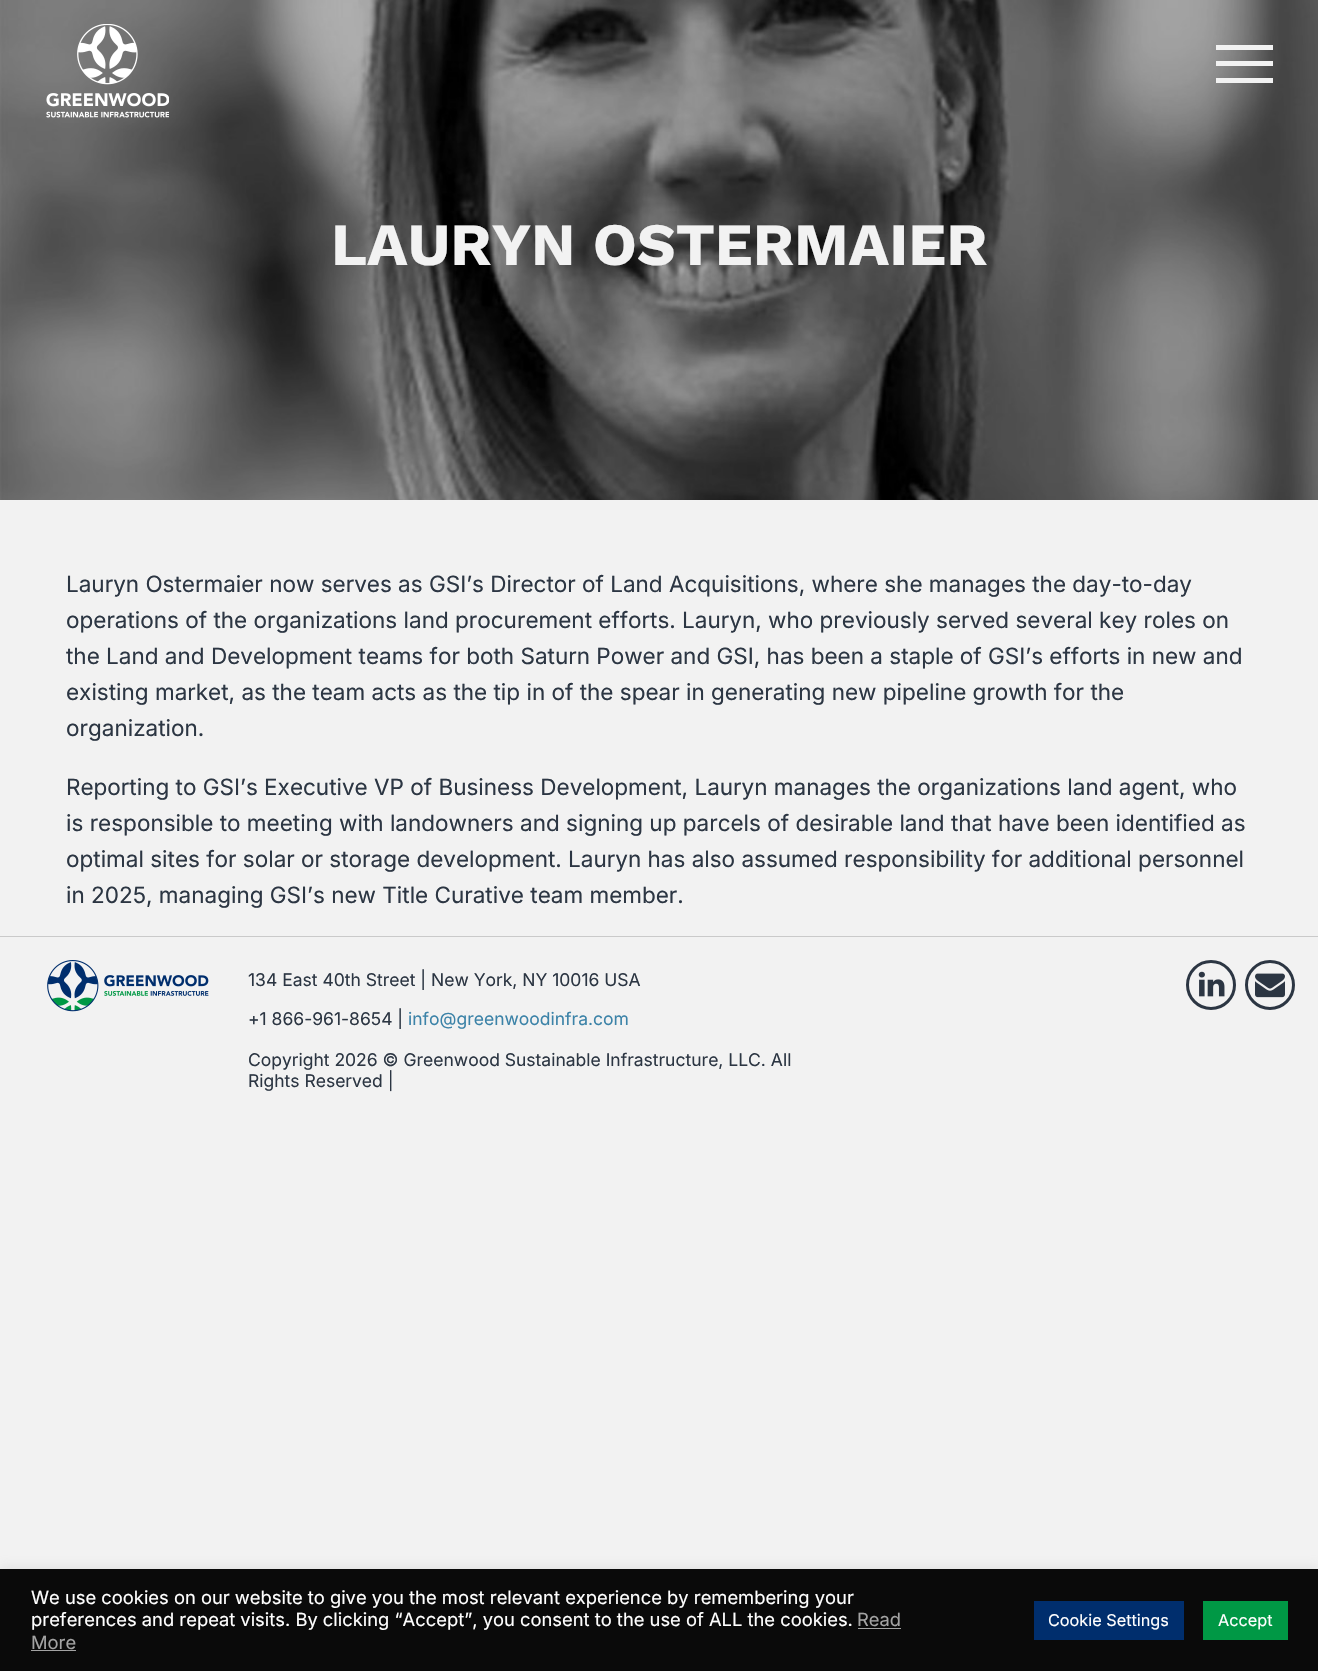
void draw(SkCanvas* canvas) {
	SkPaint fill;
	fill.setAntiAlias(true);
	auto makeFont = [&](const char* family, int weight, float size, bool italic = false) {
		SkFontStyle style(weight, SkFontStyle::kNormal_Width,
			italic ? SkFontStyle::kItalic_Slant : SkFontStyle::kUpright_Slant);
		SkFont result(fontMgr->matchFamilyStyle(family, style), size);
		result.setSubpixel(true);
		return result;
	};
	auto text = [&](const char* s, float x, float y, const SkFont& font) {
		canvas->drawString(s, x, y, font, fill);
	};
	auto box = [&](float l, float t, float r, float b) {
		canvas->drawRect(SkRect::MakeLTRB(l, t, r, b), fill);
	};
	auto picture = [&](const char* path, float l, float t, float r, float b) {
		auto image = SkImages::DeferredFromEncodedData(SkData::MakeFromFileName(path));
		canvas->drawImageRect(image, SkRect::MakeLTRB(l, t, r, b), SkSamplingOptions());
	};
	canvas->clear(0xFFF2F2F2);
	picture("image1.png", 0, 0, 1318, 500);
	picture("image0.png", 46, 24, 169, 118);
	fill.setColor(0xFFF2F2F2);
	box(1216, 45, 1273, 50);
	box(1216, 61, 1273, 66);
	box(1216, 78, 1273, 83);
	fill.setColor(0xFFCACACA);
	box(0, 936, 1318, 937);
	picture("image2.png", 47, 960, 209, 1012);
	fill.setStyle(SkPaint::kStroke_Style);
	fill.setStrokeWidth(3);
	fill.setColor(0xFF2C3643);
	canvas->drawCircle(1211, 985, 23.5f, fill);
	picture("image3.png", 1198, 971, 1225, 997);
	canvas->drawCircle(1270, 985, 23.5f, fill);
	picture("image4.png", 1255, 973, 1285, 998);
	fill.setStyle(SkPaint::kFill_Style);
	fill.setColor(0x4DACABAB);
	fill.setMaskFilter(SkMaskFilter::MakeBlur(kNormal_SkBlurStyle, 6));
	canvas->drawRect(SkRect::MakeLTRB(0, 1568, 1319, 1670), fill);
	fill.setMaskFilter(nullptr);
	fill.setColor(0xFF0A0A0A);
	box(0, 1569, 1318, 1671);
	fill.setColor(0xFFA3A3A3);
	box(858, 1628, 901, 1629);
	box(31, 1650, 76, 1651);
	fill.setColor(0xFF002E6D);
	box(1034, 1601, 1184, 1640);
	fill.setColor(0xFF009845);
	box(1203, 1601, 1288, 1640);
	auto font1 = makeFont("Work Sans", 700, 60);
	fill.setColor(0xFFF2F2F2);
	text("LAURYN OSTERMAIER", 331, 265, font1);
	auto font2 = makeFont("Inter", 400, 22.5f);
	fill.setColor(0xFF2C3643);
	text("Lauryn Ostermaier now serves as GSI’s Director of Land Acquisitions, where she manages the day-to-day", 66, 592, font2);
	text("operations of the organizations land procurement efforts. Lauryn, who previously served several key roles on", 66, 628, font2);
	text("the Land and Development teams for both Saturn Power and GSI, has been a staple of GSI’s efforts in new and", 66, 664, font2);
	text("existing market, as the team acts as the tip in of the spear in generating new pipeline growth for the", 66, 700, font2);
	text("organization.", 66, 736, font2);
	text("Reporting to GSI’s Executive VP of Business Development, Lauryn manages the organizations land agent, who", 66, 795, font2);
	text("is responsible to meeting with landowners and signing up parcels of desirable land that have been identified as", 66, 831, font2);
	text("optimal sites for solar or storage development. Lauryn has also assumed responsibility for additional personnel", 66, 867, font2);
	text("in 2025, managing GSI’s new Title Curative team member.", 66, 903, font2);
	auto font3 = makeFont("Inter", 400, 17.5f);
	text("134 East 40th Street | New York, NY 10016 USA", 248, 986, font3);
	text("+1 866-961-8654 |", 248, 1025, font3);
	fill.setColor(0xFF3C83A8);
	text("info@greenwoodinfra.com", 408, 1025, font3);
	fill.setColor(0xFF2C3643);
	text("Copyright 2026 © Greenwood Sustainable Infrastructure, LLC. All", 248, 1066, font3);
	text("Rights Reserved |", 248, 1087, font3);
	auto font4 = makeFont("Inter", 400, 18.35f);
	fill.setColor(0xFFFFFFFF);
	text("We use cookies on our website to give you the most relevant experience by remembering your", 31, 1604, font4);
	text("preferences and repeat visits. By clicking “Accept”, you consent to the use of ALL the cookies.", 31, 1626, font4);
	fill.setColor(0xFFA3A3A3);
	text("Read", 857, 1626, font4);
	text("More", 31, 1649, font4);
	auto font5 = makeFont("Inter", 400, 16.25f);
	fill.setColor(0xFFFFFFFF);
	text("Cookie Settings", 1048, 1626, font5);
	text("Accept", 1218, 1626, font5);
}
